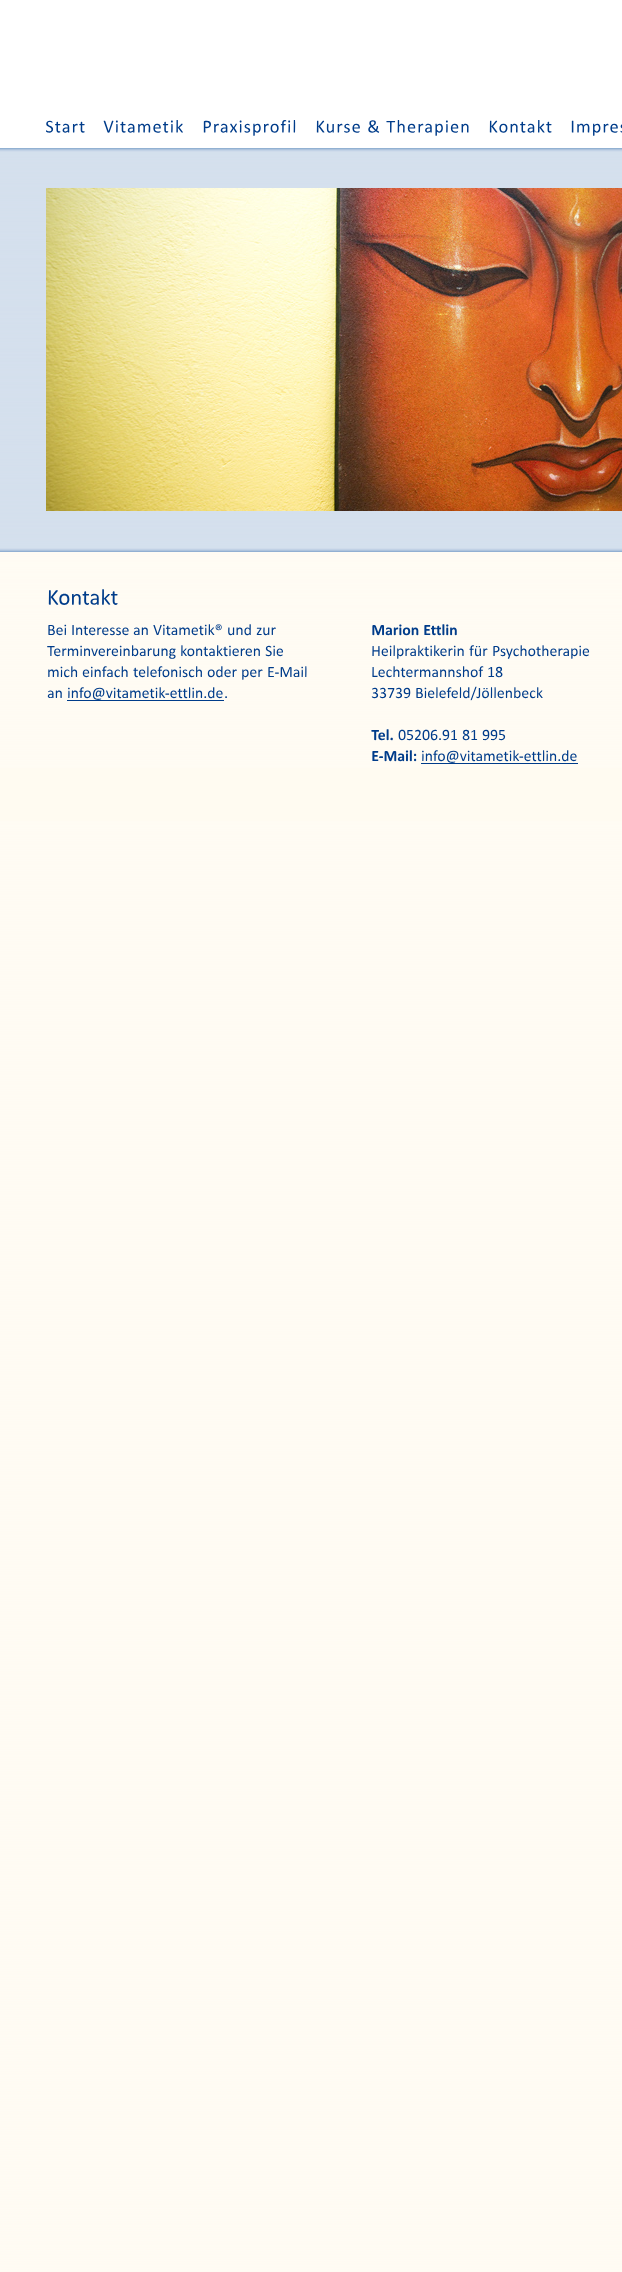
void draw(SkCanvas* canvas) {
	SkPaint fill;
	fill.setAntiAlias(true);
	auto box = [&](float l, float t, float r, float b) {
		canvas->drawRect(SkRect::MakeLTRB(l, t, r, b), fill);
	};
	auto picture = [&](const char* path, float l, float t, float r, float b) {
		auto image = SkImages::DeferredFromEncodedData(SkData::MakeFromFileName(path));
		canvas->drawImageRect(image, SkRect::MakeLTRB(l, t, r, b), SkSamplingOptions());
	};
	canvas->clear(0xFFFFFFFF);
	picture("image0.png", 0, 148, 622, 2272);
	picture("image1.png", 46, 120, 85, 133);
	picture("image2.png", 103, 120, 183, 133);
	picture("image3.png", 203, 120, 296, 136);
	picture("image4.png", 316, 120, 360, 133);
	picture("image5.png", 368, 120, 380, 133);
	picture("image6.png", 386, 120, 469, 136);
	picture("image7.png", 489, 120, 552, 133);
	picture("image8.png", 571, 120, 622, 136);
	picture("image9.png", 46, 188, 622, 511);
	picture("image10.png", 48, 589, 118, 605);
	picture("image11.png", 48, 624, 67, 636);
	picture("image12.png", 72, 625, 129, 636);
	picture("image13.png", 133, 627, 148, 635);
	picture("image14.png", 153, 624, 222, 636);
	picture("image15.png", 228, 624, 251, 636);
	picture("image16.png", 256, 627, 276, 636);
	picture("image17.png", 47, 645, 176, 659);
	picture("image18.png", 181, 645, 260, 657);
	picture("image19.png", 265, 645, 283, 657);
	picture("image20.png", 48, 666, 78, 678);
	picture("image21.png", 82, 666, 128, 678);
	picture("image22.png", 133, 666, 202, 678);
	picture("image23.png", 207, 666, 237, 678);
	picture("image24.png", 242, 669, 263, 680);
	picture("image25.png", 268, 666, 307, 677);
	picture("image26.png", 47, 690, 62, 698);
	fill.setColor(0xFF003C8A);
	box(67, 700, 224, 701);
	picture("image27.png", 68, 687, 223, 700);
	picture("image28.png", 225, 696, 227, 698);
	picture("image29.png", 372, 624, 419, 636);
	picture("image30.png", 424, 624, 457, 636);
	picture("image31.png", 372, 645, 464, 659);
	picture("image32.png", 469, 645, 488, 657);
	picture("image33.png", 493, 645, 590, 659);
	picture("image34.png", 372, 666, 484, 678);
	picture("image35.png", 488, 666, 503, 678);
	picture("image36.png", 371, 687, 411, 699);
	picture("image37.png", 416, 686, 543, 701);
	picture("image38.png", 371, 729, 393, 741);
	picture("image39.png", 398, 729, 457, 741);
	picture("image40.png", 462, 729, 478, 741);
	picture("image41.png", 482, 729, 506, 741);
	picture("image42.png", 372, 750, 417, 762);
	box(421, 763, 578, 764);
	picture("image43.png", 422, 750, 577, 763);
	fill.setColor(0xFFFFFBF1);
	box(0, 768, 622, 821);
}
